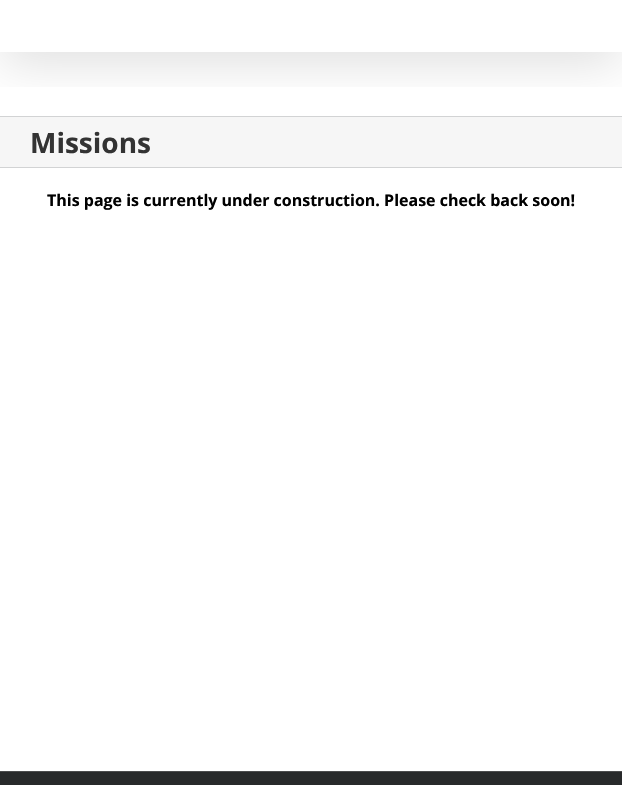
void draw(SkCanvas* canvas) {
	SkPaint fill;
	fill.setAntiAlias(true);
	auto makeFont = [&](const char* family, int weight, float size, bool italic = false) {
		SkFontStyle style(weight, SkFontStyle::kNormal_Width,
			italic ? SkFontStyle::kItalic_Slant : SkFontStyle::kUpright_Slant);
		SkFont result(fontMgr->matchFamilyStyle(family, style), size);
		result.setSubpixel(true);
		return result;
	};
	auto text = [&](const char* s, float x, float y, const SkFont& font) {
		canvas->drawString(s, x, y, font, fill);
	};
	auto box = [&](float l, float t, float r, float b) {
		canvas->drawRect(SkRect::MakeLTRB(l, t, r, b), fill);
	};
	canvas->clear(0xFFFFFFFF);
	fill.setColor(0xFFF6F6F6);
	box(0, 117, 622, 167);
	fill.setColor(0xFFD2D3D4);
	box(0, 116, 622, 117);
	canvas->save();
	canvas->clipRect(SkRect::MakeLTRB(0, 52, 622, 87));
	fill.setColor(0x24000000);
	fill.setMaskFilter(SkMaskFilter::MakeBlur(kNormal_SkBlurStyle, 25));
	canvas->drawRect(SkRect::MakeLTRB(2, 12, 620, 60), fill);
	fill.setMaskFilter(nullptr);
	canvas->restore();
	fill.setColor(0xFFD2D3D4);
	box(0, 167, 622, 168);
	fill.setColor(0xFF282A2B);
	box(0, 772, 622, 785);
	fill.setColor(0xFF4B4C4D);
	box(0, 771, 622, 772);
	auto font1 = makeFont("Open Sans", 700, 28);
	fill.setColor(0xFF333333);
	text("Missions", 30, 153, font1);
	auto font2 = makeFont("Open Sans", 700, 16);
	fill.setColor(0xFF000000);
	text("This page is currently under construction. Please check back soon!", 47, 206, font2);
}
